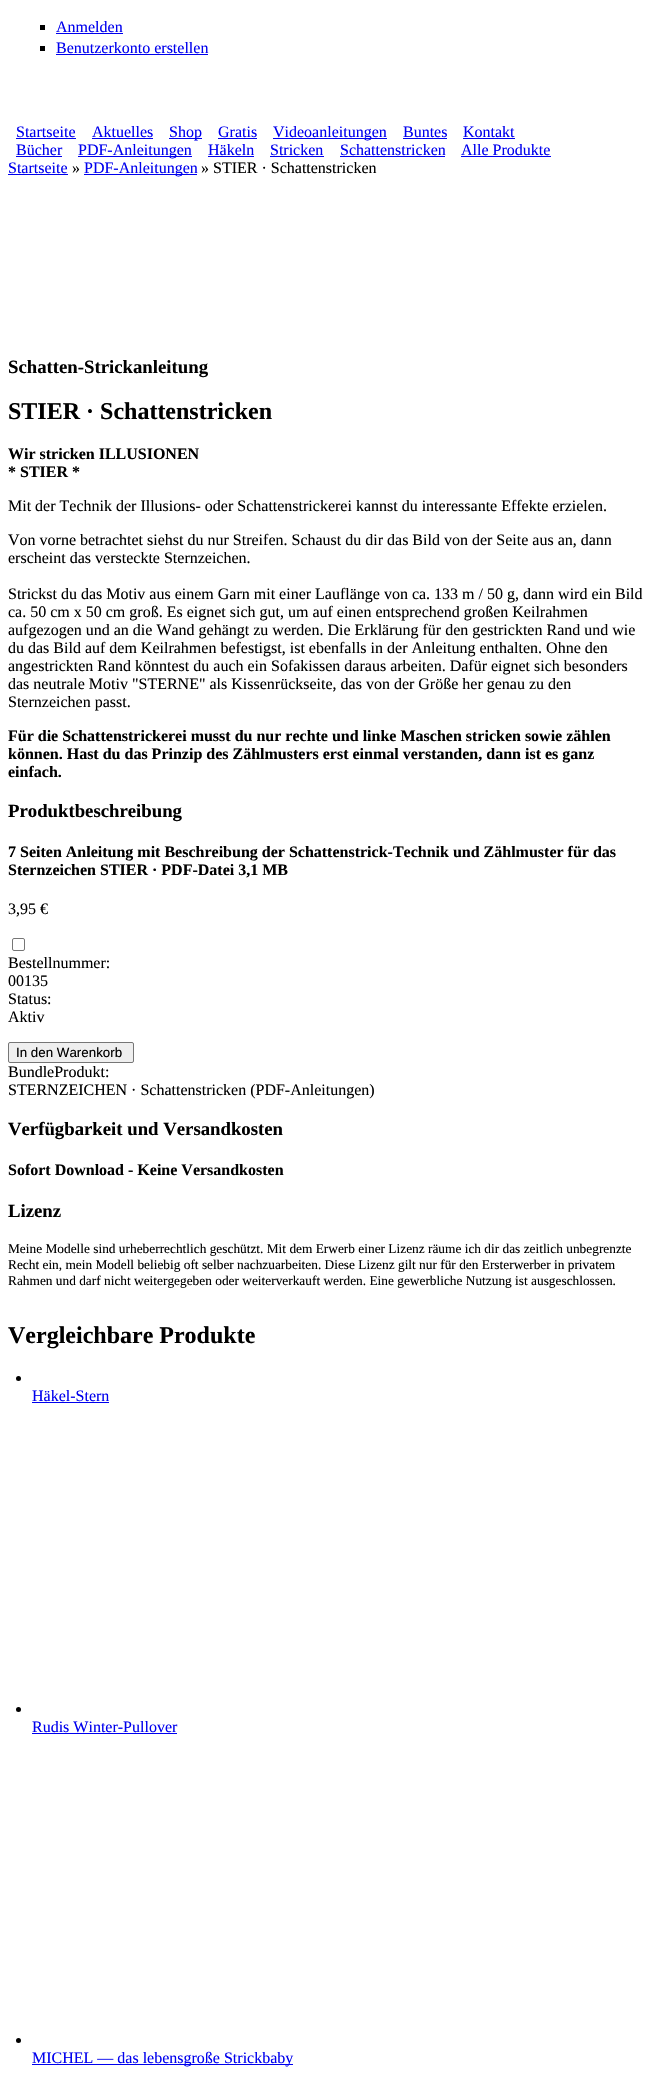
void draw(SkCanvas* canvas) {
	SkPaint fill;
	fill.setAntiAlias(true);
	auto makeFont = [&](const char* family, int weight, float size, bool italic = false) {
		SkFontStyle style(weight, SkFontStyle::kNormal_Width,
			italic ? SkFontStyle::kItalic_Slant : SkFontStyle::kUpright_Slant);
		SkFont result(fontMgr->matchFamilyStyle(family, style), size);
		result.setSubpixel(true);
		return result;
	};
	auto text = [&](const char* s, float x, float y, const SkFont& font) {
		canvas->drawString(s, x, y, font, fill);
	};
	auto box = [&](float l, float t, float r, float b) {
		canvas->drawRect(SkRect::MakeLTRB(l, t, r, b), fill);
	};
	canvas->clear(0xFFFFFFFF);
	fill.setColor(0xFF000000);
	box(40, 25, 45, 30);
	fill.setColor(0xFF0000EE);
	box(56, 33, 123, 34);
	fill.setColor(0xFF000000);
	box(40, 46, 45, 51);
	fill.setColor(0xFF0000EE);
	box(56, 54, 208, 55);
	box(16, 138, 76, 139);
	box(92, 138, 153, 139);
	box(169, 138, 202, 139);
	box(218, 138, 257, 139);
	box(273, 138, 387, 139);
	box(403, 138, 447, 139);
	box(463, 138, 515, 139);
	box(16, 156, 62, 157);
	box(78, 156, 192, 157);
	box(208, 156, 254, 157);
	box(270, 156, 324, 157);
	box(340, 156, 445, 157);
	box(461, 156, 551, 157);
	box(8, 174, 68, 175);
	box(84, 174, 197, 175);
	fill.setStyle(SkPaint::kStroke_Style);
	fill.setStrokeWidth(1);
	fill.setColor(0xFF767676);
	canvas->drawRoundRect(SkRect::MakeLTRB(12.5f, 938.5f, 24.5f, 950.5f), 1.5f, 1.5f, fill);
	fill.setStyle(SkPaint::kFill_Style);
	fill.setColor(0xFFEFEFEF);
	canvas->drawRoundRect(SkRect::MakeLTRB(8.5f, 1042.5f, 133.5f, 1062.5f), 1.5f, 1.5f, fill);
	fill.setStyle(SkPaint::kStroke_Style);
	fill.setColor(0xFF767676);
	canvas->drawRoundRect(SkRect::MakeLTRB(8.5f, 1042.5f, 133.5f, 1062.5f), 1.5f, 1.5f, fill);
	fill.setStyle(SkPaint::kFill_Style);
	fill.setColor(0xFF000000);
	canvas->drawCircle(18.5f, 1378.5f, 2.5f, fill);
	fill.setColor(0xFF0000EE);
	box(32, 1402, 109, 1403);
	fill.setColor(0xFF000000);
	canvas->drawCircle(18.5f, 1709.5f, 2.5f, fill);
	fill.setColor(0xFF0000EE);
	box(32, 1733, 177, 1734);
	fill.setColor(0xFF000000);
	canvas->drawCircle(18.5f, 2040.5f, 2.5f, fill);
	fill.setColor(0xFF0000EE);
	box(32, 2064, 293, 2065);
	auto font1 = makeFont("Liberation Serif", 400, 16);
	text("Anmelden", 56, 32, font1);
	text("Benutzerkonto erstellen", 56, 53, font1);
	text("Startseite", 16, 137, font1);
	text("Aktuelles", 92, 137, font1);
	text("Shop", 169, 137, font1);
	text("Gratis", 218, 137, font1);
	text("Videoanleitungen", 273, 137, font1);
	text("Buntes", 403, 137, font1);
	text("Kontakt", 463, 137, font1);
	text("Bücher", 16, 155, font1);
	text("PDF-Anleitungen", 78, 155, font1);
	text("Häkeln", 208, 155, font1);
	text("Stricken", 270, 155, font1);
	text("Schattenstricken", 340, 155, font1);
	text("Alle Produkte", 461, 155, font1);
	text("Startseite", 8, 173, font1);
	fill.setColor(0xFF000000);
	text("»", 72, 173, font1);
	fill.setColor(0xFF0000EE);
	text("PDF-Anleitungen", 84, 173, font1);
	fill.setColor(0xFF000000);
	text("» STIER · Schattenstricken", 201, 173, font1);
	auto font2 = makeFont("Liberation Serif", 700, 18.75f);
	text("Schatten-Strickanleitung", 8, 373, font2);
	auto font3 = makeFont("Liberation Serif", 700, 24);
	text("STIER · Schattenstricken", 8, 419, font3);
	auto font4 = makeFont("Liberation Serif", 700, 16);
	text("Wir stricken ILLUSIONEN", 8, 459, font4);
	text("* STIER *", 8, 477, font4);
	text("Mit der Technik der Illusions- oder Schattenstrickerei kannst du interessante Effekte erzielen.", 8, 511, font1);
	text("Von vorne betrachtet siehst du nur Streifen. Schaust du dir das Bild von der Seite aus an, dann", 8, 545, font1);
	text("erscheint das versteckte Sternzeichen.", 8, 563, font1);
	text("Strickst du das Motiv aus einem Garn mit einer Lauflänge von ca. 133 m / 50 g, dann wird ein Bild", 8, 599, font1);
	text("ca. 50 cm x 50 cm groß. Es eignet sich gut, um auf einen entsprechend großen Keilrahmen", 8, 617, font1);
	text("aufgezogen und an die Wand gehängt zu werden. Die Erklärung für den gestrickten Rand und wie", 8, 635, font1);
	text("du das Bild auf dem Keilrahmen befestigst, ist ebenfalls in der Anleitung enthalten. Ohne den", 8, 653, font1);
	text("angestrickten Rand könntest du auch ein Sofakissen daraus arbeiten. Dafür eignet sich besonders", 8, 671, font1);
	text("das neutrale Motiv \"STERNE\" als Kissenrückseite, das von der Größe her genau zu den", 8, 689, font1);
	text("Sternzeichen passt.", 8, 707, font1);
	text("Für die Schattenstrickerei musst du nur rechte und linke Maschen stricken sowie zählen", 8, 741, font4);
	text("können. Hast du das Prinzip des Zählmusters erst einmal verstanden, dann ist es ganz", 8, 759, font4);
	text("einfach.", 8, 777, font4);
	text("Produktbeschreibung", 8, 817, font2);
	text("7 Seiten Anleitung mit Beschreibung der Schattenstrick-Technik und Zählmuster für das", 8, 857, font4);
	text("Sternzeichen STIER · PDF-Datei 3,1 MB", 8, 875, font4);
	text("3,95 €", 8, 914, font1);
	text("Bestellnummer:", 8, 968, font1);
	text("00135", 8, 986, font1);
	text("Status:", 8, 1004, font1);
	text("Aktiv", 8, 1022, font1);
	auto font5 = makeFont("Liberation Sans", 400, 13.35f);
	text("In den Warenkorb", 16, 1057, font5);
	text("BundleProdukt:", 8, 1077, font1);
	text("STERNZEICHEN · Schattenstricken (PDF-Anleitungen)", 8, 1095, font1);
	text("Verfügbarkeit und Versandkosten", 8, 1135, font2);
	text("Sofort Download - Keine Versandkosten", 8, 1175, font4);
	text("Lizenz", 8, 1217, font2);
	auto font6 = makeFont("Liberation Serif", 400, 13.35f);
	text("Meine Modelle sind urheberrechtlich geschützt. Mit dem Erwerb einer Lizenz räume ich dir das zeitlich unbegrenzte", 8, 1253, font6);
	text("Recht ein, mein Modell beliebig oft selber nachzuarbeiten. Diese Lizenz gilt nur für den Ersterwerber in privatem", 8, 1269, font6);
	text("Rahmen und darf nicht weitergegeben oder weiterverkauft werden. Eine gewerbliche Nutzung ist ausgeschlossen.", 8, 1285, font6);
	text("Vergleichbare Produkte", 8, 1343, font3);
	fill.setColor(0xFF0000EE);
	text("Häkel-Stern", 32, 1401, font1);
	text("Rudis Winter-Pullover", 32, 1732, font1);
	text("MICHEL — das lebensgroße Strickbaby", 32, 2063, font1);
}
